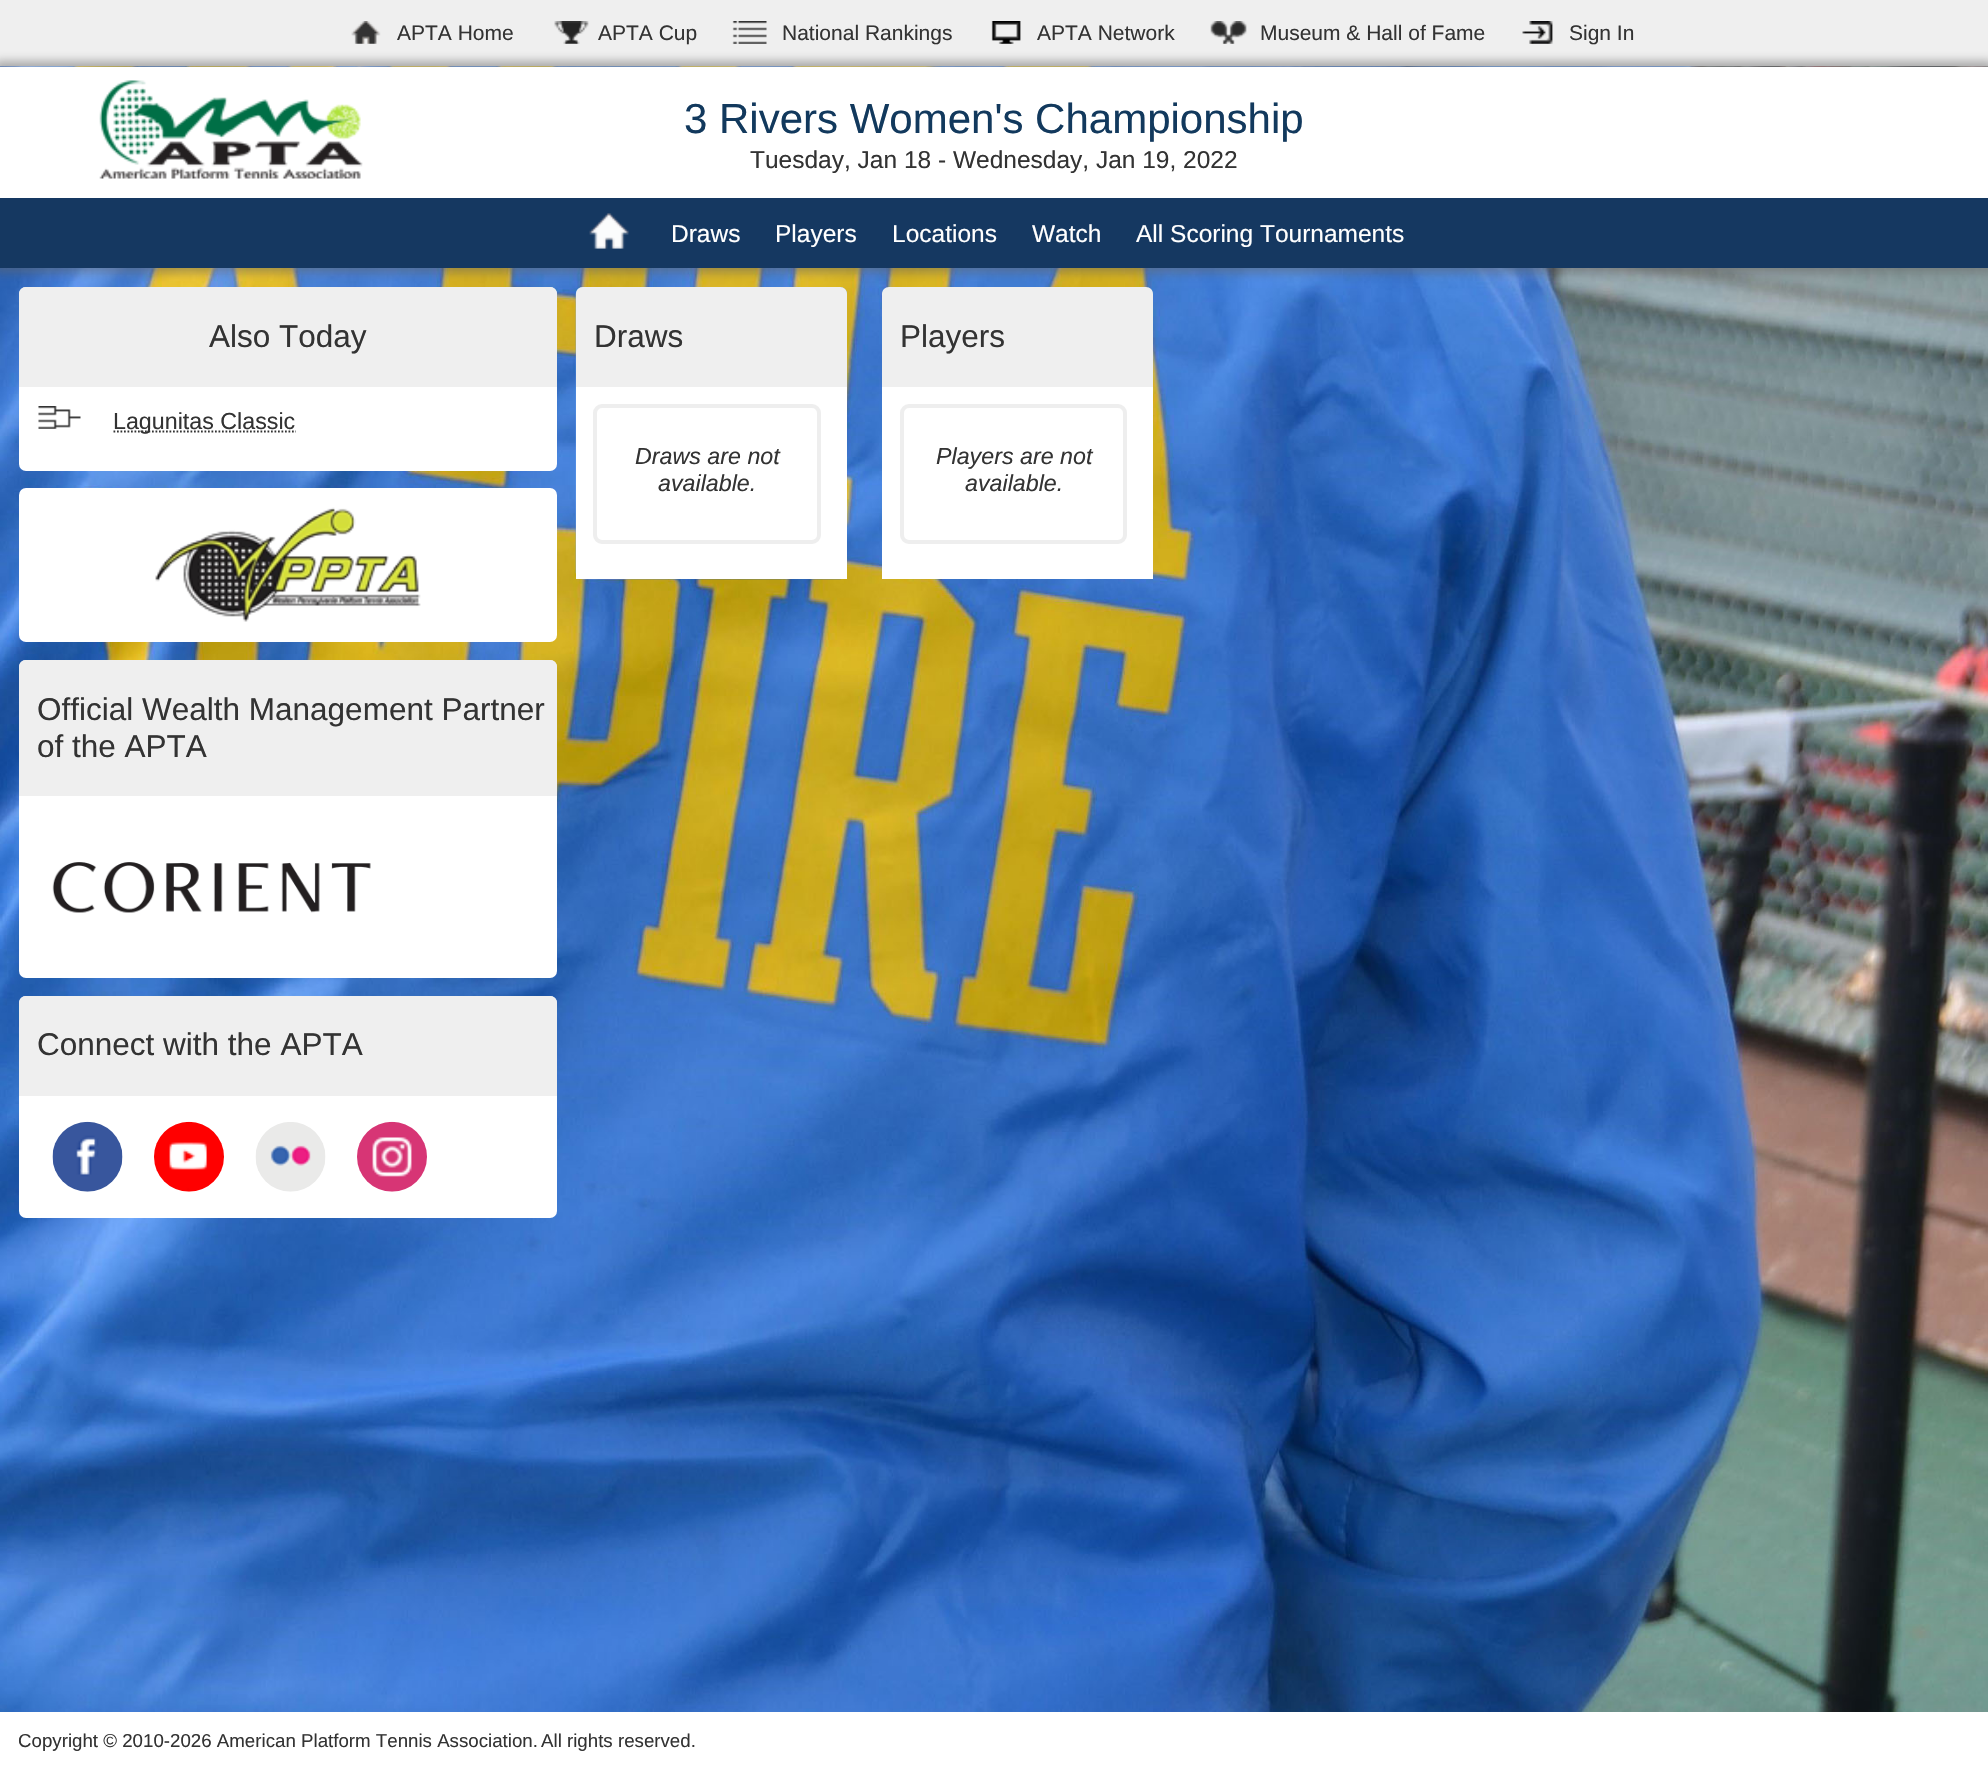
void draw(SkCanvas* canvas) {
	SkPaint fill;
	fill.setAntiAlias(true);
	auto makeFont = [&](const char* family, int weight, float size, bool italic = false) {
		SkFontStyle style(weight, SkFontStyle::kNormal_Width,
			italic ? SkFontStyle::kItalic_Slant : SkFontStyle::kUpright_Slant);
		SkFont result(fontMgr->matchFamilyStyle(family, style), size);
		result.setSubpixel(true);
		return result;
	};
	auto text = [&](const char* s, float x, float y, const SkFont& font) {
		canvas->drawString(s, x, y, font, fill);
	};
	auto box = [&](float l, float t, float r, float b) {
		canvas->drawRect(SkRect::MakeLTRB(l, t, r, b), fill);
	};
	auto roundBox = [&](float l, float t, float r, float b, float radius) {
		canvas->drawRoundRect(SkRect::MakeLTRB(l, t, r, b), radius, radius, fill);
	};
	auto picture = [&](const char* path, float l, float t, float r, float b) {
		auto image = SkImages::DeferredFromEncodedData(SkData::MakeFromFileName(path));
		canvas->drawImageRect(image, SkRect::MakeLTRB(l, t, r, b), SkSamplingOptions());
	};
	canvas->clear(0xFFFFFFFF);
	picture("image0.png", 0, 268, 1988, 1712);
	fill.setColor(0xFFEFEFEF);
	box(0, 0, 1988, 67);
	picture("image1.png", 351, 21, 381, 44);
	picture("image2.png", 554, 21, 589, 44);
	picture("image3.png", 732, 21, 767, 44);
	picture("image4.png", 991, 21, 1021, 44);
	picture("image5.png", 1210, 21, 1247, 44);
	picture("image6.png", 1522, 21, 1553, 44);
	fill.setColor(0x80646464);
	fill.setMaskFilter(SkMaskFilter::MakeBlur(kNormal_SkBlurStyle, 4.5f));
	canvas->drawRect(SkRect::MakeLTRB(-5, 61, 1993, 273), fill);
	fill.setMaskFilter(nullptr);
	picture("image7.png", 0, 66, 1988, 67);
	fill.setColor(0xFFFFFFFF);
	box(0, 67, 1988, 198);
	picture("image8.png", 99, 80, 363, 179);
	fill.setColor(0xFF153861);
	box(0, 198, 1988, 268);
	picture("image9.png", 589, 213, 629, 249);
	fill.setColor(0xFFFFFFFF);
	roundBox(19, 287, 557, 471, 7);
	fill.setColor(0xFFEFEFEF);
	canvas->drawPath(SkPathBuilder().moveTo(26, 287).lineTo(550, 287).cubicTo(554, 287, 557, 290, 557, 294).lineTo(557, 387).lineTo(19, 387).lineTo(19, 294).cubicTo(19, 290, 22, 287, 26, 287).close().detach(), fill);
	picture("image10.png", 38, 406, 81, 429);
	fill.setStyle(SkPaint::kStroke_Style);
	fill.setStrokeWidth(1.8f);
	fill.setColor(0xFF333333);
	fill.setPathEffect(SkDashPathEffect::Make({{1.75f, 1.75f}}, 0));
	canvas->drawPath(SkPathBuilder().moveTo(113.5f, 431.5f).lineTo(296, 431.5f).detach(), fill);
	fill.setPathEffect(nullptr);
	fill.setStyle(SkPaint::kFill_Style);
	fill.setColor(0xFFFFFFFF);
	roundBox(19, 488, 557, 642, 7);
	picture("image11.png", 155, 507, 421, 622);
	roundBox(19, 660, 557, 978, 7);
	fill.setColor(0xFFEFEFEF);
	canvas->drawPath(SkPathBuilder().moveTo(26, 660).lineTo(550, 660).cubicTo(554, 660, 557, 663, 557, 667).lineTo(557, 796).lineTo(19, 796).lineTo(19, 667).cubicTo(19, 663, 22, 660, 26, 660).close().detach(), fill);
	picture("image12.png", 52, 862, 371, 913);
	fill.setColor(0xFFFFFFFF);
	roundBox(19, 996, 557, 1218, 7);
	fill.setColor(0xFFEFEFEF);
	canvas->drawPath(SkPathBuilder().moveTo(26, 996).lineTo(550, 996).cubicTo(554, 996, 557, 999, 557, 1003).lineTo(557, 1096).lineTo(19, 1096).lineTo(19, 1003).cubicTo(19, 999, 22, 996, 26, 996).close().detach(), fill);
	picture("image13.png", 52, 1121, 123, 1192);
	picture("image14.png", 154, 1121, 224, 1192);
	picture("image15.png", 255, 1122, 326, 1192);
	picture("image16.png", 357, 1121, 427, 1192);
	picture("image17.png", 575, 287, 847, 580);
	canvas->drawPath(SkPathBuilder().moveTo(583, 287).lineTo(840, 287).cubicTo(844, 287, 847, 290, 847, 294).lineTo(847, 387).lineTo(576, 387).lineTo(576, 294).cubicTo(576, 290, 579, 287, 583, 287).close().detach(), fill);
	fill.setColor(0xFFFFFFFF);
	box(576, 387, 847, 579);
	fill.setStyle(SkPaint::kStroke_Style);
	fill.setStrokeWidth(4);
	fill.setColor(0xFFEEEEEE);
	canvas->drawRoundRect(SkRect::MakeLTRB(595, 406, 819, 542), 7, 7, fill);
	fill.setStyle(SkPaint::kFill_Style);
	fill.setColor(0xFFEFEFEF);
	canvas->drawPath(SkPathBuilder().moveTo(889, 287).lineTo(1146, 287).cubicTo(1150, 287, 1153, 290, 1153, 294).lineTo(1153, 387).lineTo(882, 387).lineTo(882, 294).cubicTo(882, 290, 885, 287, 889, 287).close().detach(), fill);
	fill.setColor(0xFFFFFFFF);
	box(882, 387, 1153, 579);
	fill.setStyle(SkPaint::kStroke_Style);
	fill.setColor(0xFFEEEEEE);
	canvas->drawRoundRect(SkRect::MakeLTRB(902, 406, 1125, 542), 7, 7, fill);
	auto font1 = makeFont("Liberation Sans", 400, 21);
	fill.setStyle(SkPaint::kFill_Style);
	fill.setColor(0xFF333333);
	text("APTA Home", 397, 40, font1);
	text("APTA Cup", 598, 40, font1);
	text("National Rankings", 782, 40, font1);
	text("APTA Network", 1037, 40, font1);
	text("Museum & Hall of Fame", 1260, 40, font1);
	text("Sign In", 1569, 40, font1);
	auto font2 = makeFont("Liberation Sans", 400, 42);
	fill.setColor(0xFF12395D);
	text("3 Rivers Women's Championship", 684, 133, font2);
	auto font3 = makeFont("Liberation Sans", 400, 24.5f);
	fill.setColor(0xFF333333);
	text("Tuesday, Jan 18 - Wednesday, Jan 19, 2022", 750, 168, font3);
	fill.setColor(0xFFFFFFFF);
	text("Draws", 671, 242, font3);
	text("Players", 775, 242, font3);
	text("Locations", 892, 242, font3);
	text("Watch", 1032, 242, font3);
	text("All Scoring Tournaments", 1136, 242, font3);
	auto font4 = makeFont("Liberation Sans", 400, 31.5f);
	fill.setColor(0xFF333333);
	text("Also Today", 209, 347, font4);
	auto font5 = makeFont("Liberation Sans", 400, 23.25f);
	text("Lagunitas Classic", 113, 429, font5);
	text("Official Wealth Management Partner", 37, 720, font4);
	text("of the APTA", 37, 757, font4);
	text("Connect with the APTA", 37, 1055, font4);
	text("Draws", 594, 347, font4);
	auto font6 = makeFont("Liberation Sans", 400, 23.25f, true);
	text("Draws are not", 635, 464, font6);
	text("available.", 658, 491, font6);
	text("Players", 900, 347, font4);
	text("Players are not", 936, 464, font6);
	text("available.", 965, 491, font6);
	auto font7 = makeFont("Liberation Sans", 400, 18.7f);
	text("Copyright © 2010-2026 American Platform Tennis Association.", 18, 1747, font7);
	text("All rights reserved.", 541, 1747, font7);
}
